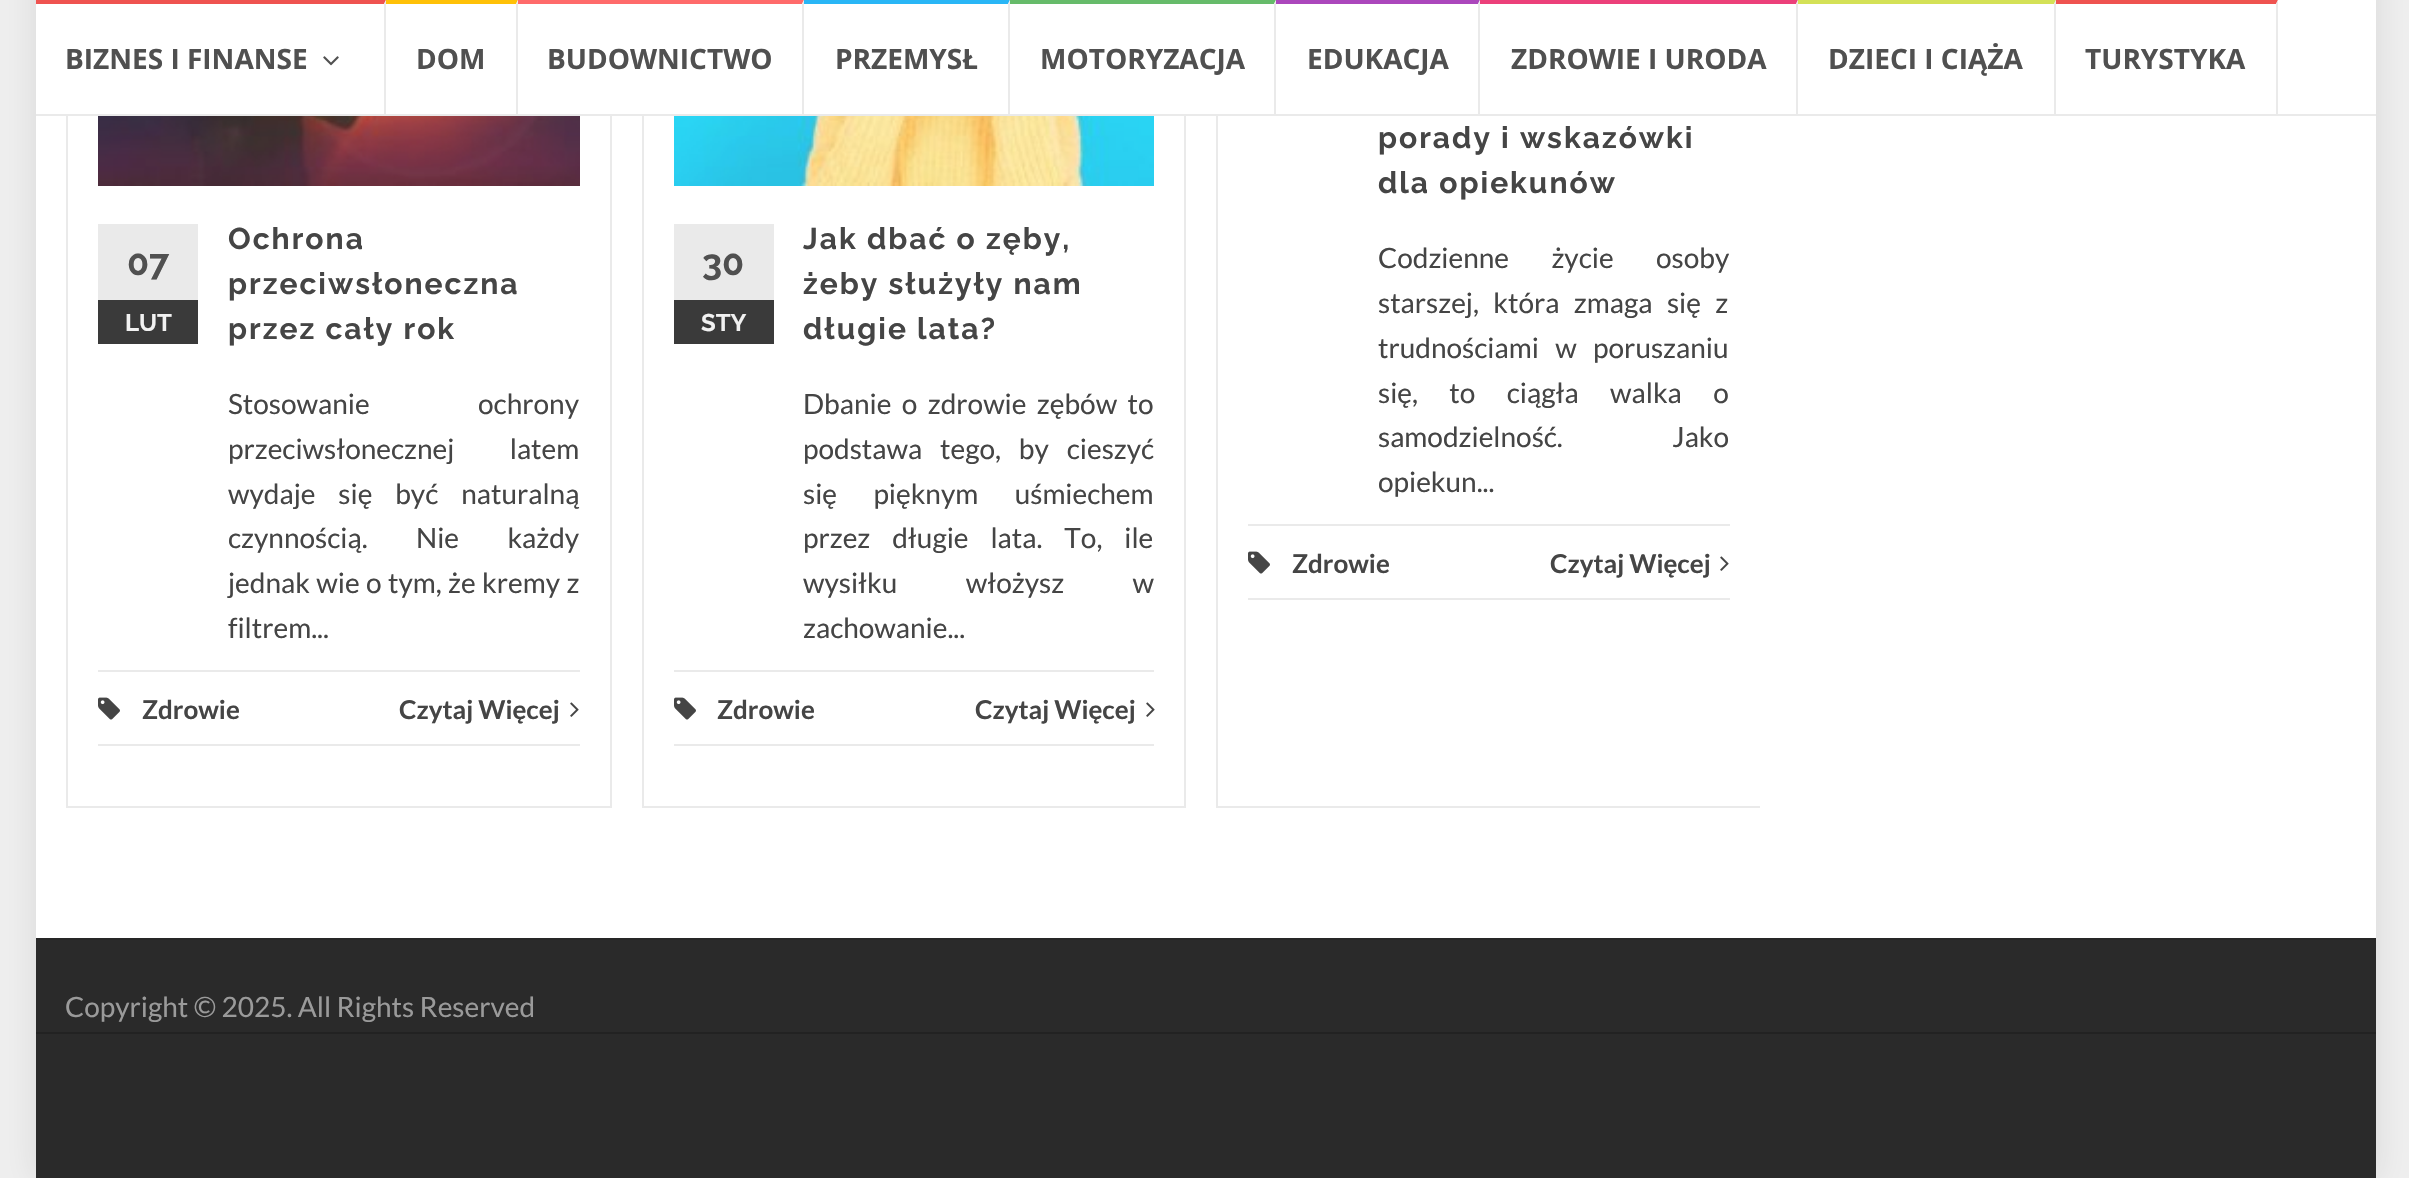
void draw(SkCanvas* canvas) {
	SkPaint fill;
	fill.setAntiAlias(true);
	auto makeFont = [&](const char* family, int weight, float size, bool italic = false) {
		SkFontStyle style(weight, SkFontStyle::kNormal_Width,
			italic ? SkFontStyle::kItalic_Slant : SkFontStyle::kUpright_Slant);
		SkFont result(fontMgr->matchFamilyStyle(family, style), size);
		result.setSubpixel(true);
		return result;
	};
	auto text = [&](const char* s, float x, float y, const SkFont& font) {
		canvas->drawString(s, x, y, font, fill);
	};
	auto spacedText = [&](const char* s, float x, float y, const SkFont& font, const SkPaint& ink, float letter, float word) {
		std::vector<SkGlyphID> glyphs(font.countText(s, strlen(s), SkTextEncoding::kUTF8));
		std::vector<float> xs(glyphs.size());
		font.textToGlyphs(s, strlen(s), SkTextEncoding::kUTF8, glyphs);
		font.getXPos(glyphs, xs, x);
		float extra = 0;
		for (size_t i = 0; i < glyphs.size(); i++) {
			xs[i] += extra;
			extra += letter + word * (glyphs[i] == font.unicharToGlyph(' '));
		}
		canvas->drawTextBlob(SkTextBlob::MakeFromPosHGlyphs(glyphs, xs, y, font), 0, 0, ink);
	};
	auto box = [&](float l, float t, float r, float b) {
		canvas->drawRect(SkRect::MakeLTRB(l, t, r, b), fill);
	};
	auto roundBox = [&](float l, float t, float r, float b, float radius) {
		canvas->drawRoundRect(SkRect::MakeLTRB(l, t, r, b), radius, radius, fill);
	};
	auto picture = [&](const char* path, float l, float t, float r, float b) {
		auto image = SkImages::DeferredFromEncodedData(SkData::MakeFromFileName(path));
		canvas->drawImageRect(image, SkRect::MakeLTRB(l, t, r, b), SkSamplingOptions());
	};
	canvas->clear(0xFFEFEFEF);
	fill.setColor(0x1A000000);
	fill.setMaskFilter(SkMaskFilter::MakeBlur(kNormal_SkBlurStyle, 15));
	canvas->drawRect(SkRect::MakeLTRB(36, -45, 2376, 1178), fill);
	fill.setMaskFilter(nullptr);
	fill.setColor(0xFFFFFFFF);
	box(36, 0, 2376, 938);
	fill.setStyle(SkPaint::kStroke_Style);
	fill.setStrokeWidth(2);
	fill.setColor(0xFFEAEAEA);
	canvas->drawRect(SkRect::MakeLTRB(67, -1, 611, 807), fill);
	canvas->drawRect(SkRect::MakeLTRB(643, -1, 1185, 807), fill);
	canvas->save();
	canvas->clipRect(SkRect::MakeLTRB(66, 0, 1760, 808));
	canvas->drawRect(SkRect::MakeLTRB(1217, -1, 1761, 807), fill);
	canvas->restore();
	fill.setStyle(SkPaint::kFill_Style);
	fill.setColor(0xFFFFFFFF);
	roundBox(36, 0, 2376, 116, 8);
	fill.setColor(0xFFEAEAEA);
	box(36, 114, 2376, 116);
	fill.setColor(0xFFEF5350);
	canvas->drawPath(SkPathBuilder().moveTo(36, 0).lineTo(386, 0).lineTo(384, 4).lineTo(36, 4).close().detach(), fill);
	fill.setColor(0xFFEAEAEA);
	canvas->drawPath(SkPathBuilder().moveTo(386, 0).lineTo(386, 114).lineTo(384, 114).lineTo(384, 4).close().detach(), fill);
	picture("image0.png", 323, 56, 339, 66);
	fill.setColor(0xFFFFC107);
	canvas->drawPath(SkPathBuilder().moveTo(386, 0).lineTo(518, 0).lineTo(516, 4).lineTo(386, 4).close().detach(), fill);
	fill.setColor(0xFFEAEAEA);
	canvas->drawPath(SkPathBuilder().moveTo(518, 0).lineTo(518, 114).lineTo(516, 114).lineTo(516, 4).close().detach(), fill);
	fill.setColor(0xFFFF6B6B);
	canvas->drawPath(SkPathBuilder().moveTo(518, 0).lineTo(804, 0).lineTo(802, 4).lineTo(518, 4).close().detach(), fill);
	fill.setColor(0xFFEAEAEA);
	canvas->drawPath(SkPathBuilder().moveTo(804, 0).lineTo(804, 114).lineTo(802, 114).lineTo(802, 4).close().detach(), fill);
	fill.setColor(0xFF29B6F6);
	canvas->drawPath(SkPathBuilder().moveTo(804, 0).lineTo(1010, 0).lineTo(1008, 4).lineTo(804, 4).close().detach(), fill);
	fill.setColor(0xFFEAEAEA);
	canvas->drawPath(SkPathBuilder().moveTo(1010, 0).lineTo(1010, 114).lineTo(1008, 114).lineTo(1008, 4).close().detach(), fill);
	fill.setColor(0xFF66BB6A);
	canvas->drawPath(SkPathBuilder().moveTo(1010, 0).lineTo(1276, 0).lineTo(1274, 4).lineTo(1010, 4).close().detach(), fill);
	fill.setColor(0xFFEAEAEA);
	canvas->drawPath(SkPathBuilder().moveTo(1276, 0).lineTo(1276, 114).lineTo(1274, 114).lineTo(1274, 4).close().detach(), fill);
	fill.setColor(0xFFAB47BC);
	canvas->drawPath(SkPathBuilder().moveTo(1276, 0).lineTo(1480, 0).lineTo(1478, 4).lineTo(1276, 4).close().detach(), fill);
	fill.setColor(0xFFEAEAEA);
	canvas->drawPath(SkPathBuilder().moveTo(1480, 0).lineTo(1480, 114).lineTo(1478, 114).lineTo(1478, 4).close().detach(), fill);
	fill.setColor(0xFFEC407A);
	canvas->drawPath(SkPathBuilder().moveTo(1480, 0).lineTo(1798, 0).lineTo(1796, 4).lineTo(1480, 4).close().detach(), fill);
	fill.setColor(0xFFEAEAEA);
	canvas->drawPath(SkPathBuilder().moveTo(1798, 0).lineTo(1798, 114).lineTo(1796, 114).lineTo(1796, 4).close().detach(), fill);
	fill.setColor(0xFFD4E157);
	canvas->drawPath(SkPathBuilder().moveTo(1798, 0).lineTo(2056, 0).lineTo(2054, 4).lineTo(1798, 4).close().detach(), fill);
	fill.setColor(0xFFEAEAEA);
	canvas->drawPath(SkPathBuilder().moveTo(2056, 0).lineTo(2056, 114).lineTo(2054, 114).lineTo(2054, 4).close().detach(), fill);
	fill.setColor(0xFFEF5350);
	canvas->drawPath(SkPathBuilder().moveTo(2056, 0).lineTo(2278, 0).lineTo(2276, 4).lineTo(2056, 4).close().detach(), fill);
	fill.setColor(0xFFEAEAEA);
	canvas->drawPath(SkPathBuilder().moveTo(2278, 0).lineTo(2278, 114).lineTo(2276, 114).lineTo(2276, 4).close().detach(), fill);
	picture("image1.png", 98, 116, 580, 186);
	box(98, 224, 198, 300);
	fill.setColor(0xFF3A3A3A);
	box(98, 300, 198, 344);
	fill.setColor(0xFFEAEAEA);
	box(98, 670, 580, 672);
	box(98, 744, 580, 746);
	picture("image2.png", 98, 697, 120, 720);
	picture("image3.png", 570, 702, 579, 717);
	picture("image4.png", 674, 116, 1154, 186);
	box(674, 224, 774, 300);
	fill.setColor(0xFF3A3A3A);
	box(674, 300, 774, 344);
	fill.setColor(0xFFEAEAEA);
	box(674, 670, 1154, 672);
	box(674, 744, 1154, 746);
	picture("image2.png", 674, 697, 696, 720);
	picture("image3.png", 1146, 702, 1155, 717);
	box(1248, 524, 1730, 526);
	box(1248, 598, 1730, 600);
	picture("image2.png", 1248, 551, 1270, 574);
	picture("image3.png", 1720, 556, 1729, 571);
	fill.setColor(0xFF2A2A2A);
	box(36, 940, 2376, 1178);
	fill.setColor(0xFF262626);
	box(36, 938, 2376, 940);
	fill.setColor(0xFF222222);
	box(36, 1032, 2376, 1034);
	auto font1 = makeFont("Open Sans", 700, 28);
	fill.setColor(0xFF505050);
	text("BIZNES I FINANSE", 65, 69, font1);
	text("DOM", 416, 69, font1);
	text("BUDOWNICTWO", 547, 69, font1);
	text("PRZEMYSŁ", 835, 69, font1);
	text("MOTORYZACJA", 1040, 69, font1);
	text("EDUKACJA", 1307, 69, font1);
	text("ZDROWIE I URODA", 1511, 69, font1);
	text("DZIECI I CIĄŻA", 1828, 69, font1);
	text("TURYSTYKA", 2085, 69, font1);
	auto font2 = makeFont("Raleway", 700, 36);
	text("07", 127, 275, font2);
	auto font3 = makeFont("Raleway", 700, 24);
	fill.setColor(0xFFF1F1F1);
	text("LUT", 125, 331, font3);
	auto font4 = makeFont("Raleway", 700, 30);
	fill.setColor(0xFF454545);
	spacedText("Ochrona", 228, 249, font4, fill, 2, 0);
	spacedText("przeciwsłoneczna", 228, 294, font4, fill, 2, 0);
	spacedText("przez cały rok", 228, 339, font4, fill, 2, 0);
	auto font5 = makeFont("Lato", 400, 28);
	spacedText("Stosowanie ochrony", 228, 414, font5, fill, 0, 103);
	spacedText("przeciwsłonecznej latem", 228, 459, font5, fill, 0, 50);
	spacedText("wydaje się być naturalną", 228, 504, font5, fill, 0, 17.5f);
	spacedText("czynnością. Nie każdy", 228, 548, font5, fill, 0, 43);
	spacedText("jednak wie o tym, że kremy z", 228, 593, font5, fill, 0, 1);
	text("filtrem...", 228, 638, font5);
	auto font6 = makeFont("Lato", 700, 26);
	text("Zdrowie", 142, 719, font6);
	text("Czytaj Więcej", 399, 719, font6);
	fill.setColor(0xFF505050);
	text("30", 702, 275, font2);
	fill.setColor(0xFFF1F1F1);
	text("STY", 701, 331, font3);
	fill.setColor(0xFF454545);
	spacedText("Jak dbać o zęby,", 803, 249, font4, fill, 2, 0);
	spacedText("żeby służyły nam", 803, 294, font4, fill, 2, 0);
	spacedText("długie lata?", 803, 339, font4, fill, 2, 0);
	spacedText("Dbanie o zdrowie zębów to", 803, 414, font5, fill, 0, 5);
	spacedText("podstawa tego, by cieszyć", 803, 459, font5, fill, 0, 12.5f);
	spacedText("się pięknym uśmiechem", 803, 504, font5, fill, 0, 31);
	spacedText("przez długie lata. To, ile", 803, 548, font5, fill, 0, 16.5f);
	spacedText("wysiłku włożysz w", 803, 593, font5, fill, 0, 63);
	text("zachowanie...", 803, 638, font5);
	text("Zdrowie", 717, 719, font6);
	text("Czytaj Więcej", 975, 719, font6);
	spacedText("porady i wskazówki", 1378, 148, font4, fill, 2, 0);
	spacedText("dla opiekunów", 1378, 193, font4, fill, 2, 0);
	spacedText("Codzienne życie osoby", 1378, 268, font5, fill, 0, 37);
	spacedText("starszej, która zmaga się z", 1378, 313, font5, fill, 0, 9);
	spacedText("trudnościami w poruszaniu", 1378, 358, font5, fill, 0, 11);
	spacedText("się, to ciągła walka o", 1378, 403, font5, fill, 0, 26);
	spacedText("samodzielność. Jako", 1378, 447, font5, fill, 0, 104);
	text("opiekun...", 1378, 492, font5);
	text("Zdrowie", 1292, 573, font6);
	text("Czytaj Więcej", 1550, 573, font6);
	fill.setColor(0xFF9A9A9A);
	text("Copyright © 2025. All Rights Reserved", 65, 1017, font5);
}
